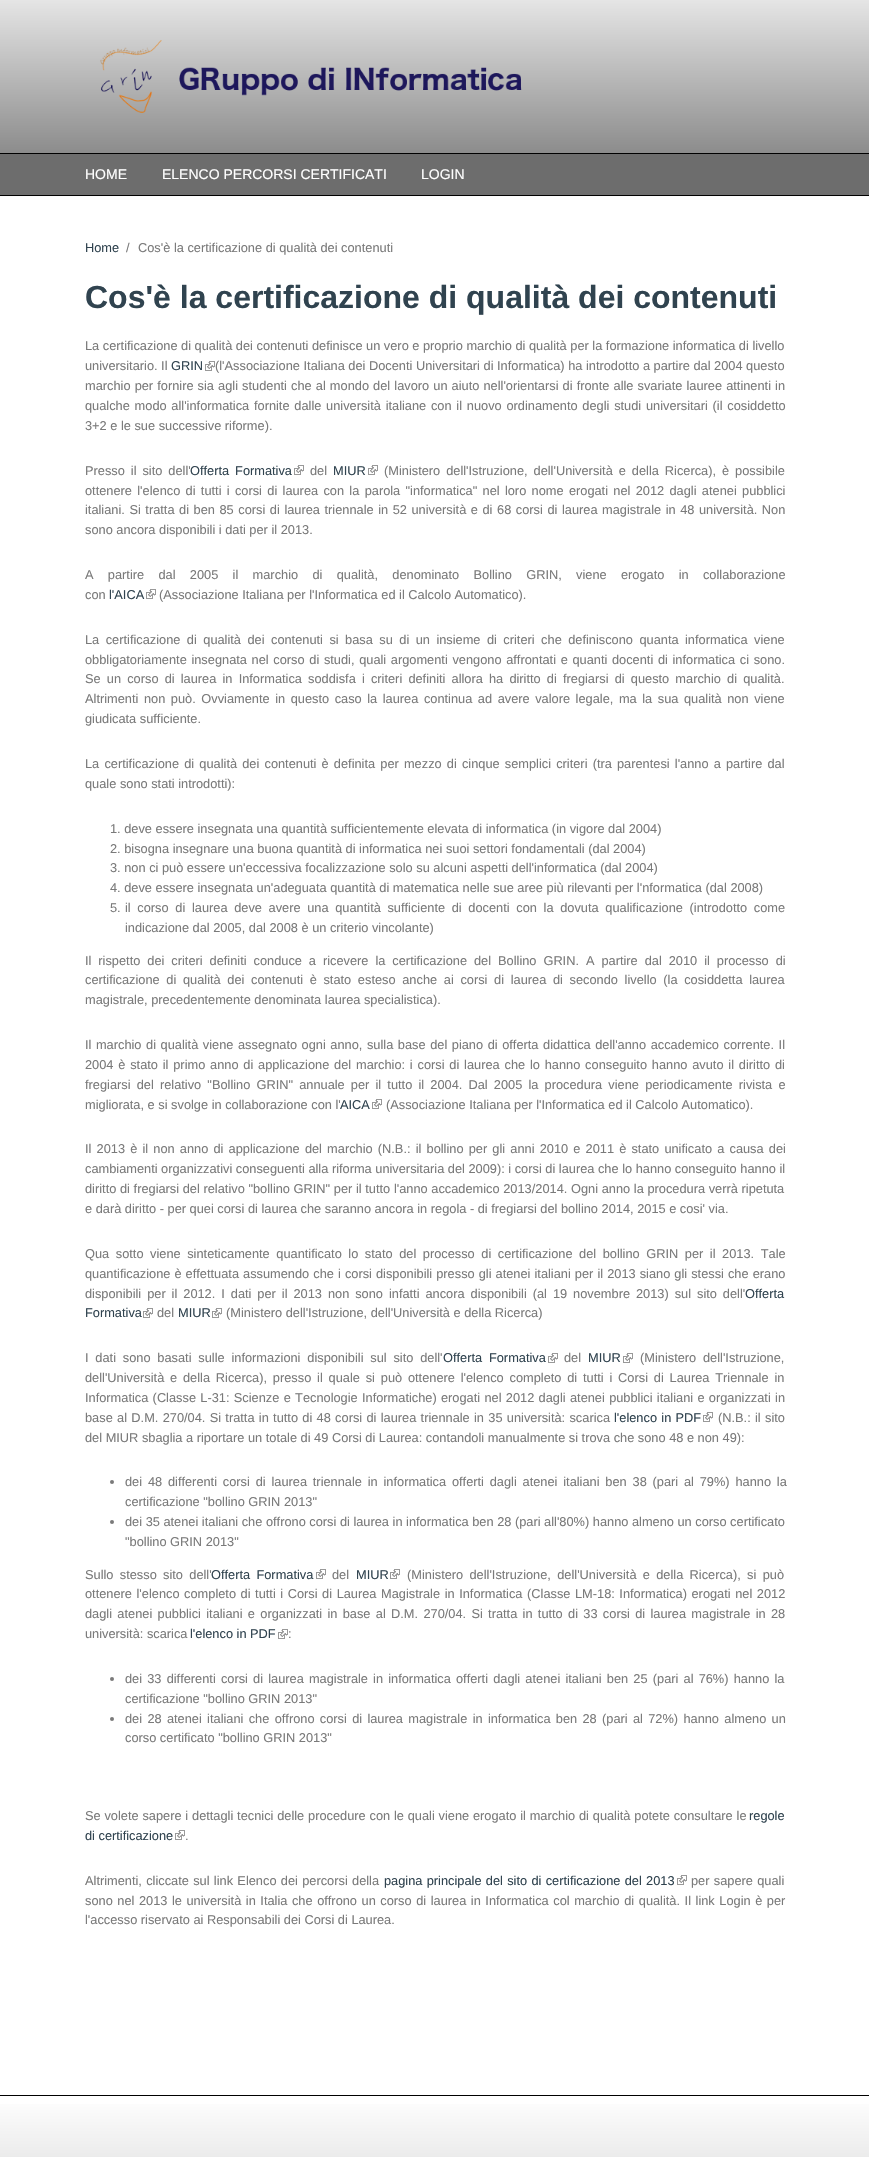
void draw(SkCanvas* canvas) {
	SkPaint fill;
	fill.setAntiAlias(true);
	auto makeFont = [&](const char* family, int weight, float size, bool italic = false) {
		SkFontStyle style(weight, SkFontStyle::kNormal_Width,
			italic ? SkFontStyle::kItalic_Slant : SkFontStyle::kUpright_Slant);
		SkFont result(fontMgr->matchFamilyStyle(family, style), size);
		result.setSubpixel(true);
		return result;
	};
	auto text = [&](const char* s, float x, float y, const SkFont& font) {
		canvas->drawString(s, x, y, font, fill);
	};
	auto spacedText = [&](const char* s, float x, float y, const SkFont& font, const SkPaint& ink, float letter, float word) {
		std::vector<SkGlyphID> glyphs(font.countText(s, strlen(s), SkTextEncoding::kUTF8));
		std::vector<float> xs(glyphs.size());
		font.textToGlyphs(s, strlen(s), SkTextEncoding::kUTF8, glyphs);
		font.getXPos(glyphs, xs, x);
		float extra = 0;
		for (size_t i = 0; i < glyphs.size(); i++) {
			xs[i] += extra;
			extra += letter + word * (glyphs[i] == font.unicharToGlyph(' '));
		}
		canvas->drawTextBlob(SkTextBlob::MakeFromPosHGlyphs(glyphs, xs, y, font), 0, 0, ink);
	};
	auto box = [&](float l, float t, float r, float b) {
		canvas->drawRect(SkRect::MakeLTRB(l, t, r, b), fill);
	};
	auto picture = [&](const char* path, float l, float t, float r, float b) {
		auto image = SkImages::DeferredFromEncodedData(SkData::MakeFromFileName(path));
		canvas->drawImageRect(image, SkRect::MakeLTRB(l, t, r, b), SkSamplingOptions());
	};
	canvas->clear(0xFFFFFFFF);
	{
		const SkColor colors[] = {0xFFE5E5E5, 0xFF8C8C8C};
		const float stops[] = {0, 1};
		const SkPoint ends[] = {{435, 0}, {435, 153}};
		fill.setShader(SkGradientShader::MakeLinear(ends, colors, stops, 2, SkTileMode::kClamp));
		fill.setAlpha(255);
	}
	box(0, 0, 869, 153);
	picture("image0.png", 100, 40, 522, 113);
	fill.setShader(nullptr);
	fill.setColor(0xFF6D6D6D);
	box(0, 154, 869, 195);
	fill.setColor(0xFF000000);
	box(0, 153, 869, 154);
	box(0, 195, 869, 196);
	fill.setColor(0xFFFCFCFC);
	box(0, 196, 869, 197);
	picture("image1.png", 205, 361, 215, 371);
	picture("image1.png", 294, 465, 304, 475);
	picture("image1.png", 368, 465, 378, 475);
	picture("image1.png", 146, 589, 156, 599);
	picture("image1.png", 372, 1099, 382, 1109);
	picture("image1.png", 143, 1308, 153, 1318);
	picture("image1.png", 212, 1308, 222, 1318);
	picture("image1.png", 548, 1353, 558, 1363);
	picture("image1.png", 623, 1353, 633, 1363);
	picture("image1.png", 703, 1412, 713, 1422);
	fill.setColor(0xFF7A7A7A);
	canvas->drawCircle(112, 1482, 2, fill);
	canvas->drawCircle(112, 1522, 2, fill);
	picture("image1.png", 316, 1569, 326, 1579);
	picture("image1.png", 390, 1569, 400, 1579);
	picture("image1.png", 278, 1629, 288, 1639);
	canvas->drawCircle(112, 1679, 2, fill);
	canvas->drawCircle(112, 1719, 2, fill);
	picture("image1.png", 175, 1830, 185, 1840);
	picture("image1.png", 677, 1875, 687, 1885);
	{
		const SkColor colors[] = {0xFFFFFFFF, 0xFFE5E5E5};
		const float stops[] = {0, 1};
		const SkPoint ends[] = {{435, 2096}, {435, 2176}};
		fill.setShader(SkGradientShader::MakeLinear(ends, colors, stops, 2, SkTileMode::kClamp));
		fill.setAlpha(255);
	}
	box(0, 2104, 869, 2157);
	fill.setShader(nullptr);
	fill.setColor(0xFF000000);
	box(0, 2095, 869, 2096);
	auto font1 = makeFont("Liberation Sans", 400, 14);
	fill.setColor(0xFFFFFFFF);
	text("HOME", 85, 179, font1);
	text("ELENCO PERCORSI CERTIFICATI", 162, 179, font1);
	text("LOGIN", 421, 179, font1);
	auto font2 = makeFont("Liberation Sans", 400, 12.8f);
	fill.setColor(0xFF30434F);
	text("Home", 85, 252, font2);
	fill.setColor(0xFF7A7A7A);
	text("/", 126, 252, font2);
	text("Cos'è la certificazione di qualità dei contenuti", 138, 252, font2);
	auto font3 = makeFont("Liberation Sans", 700, 32);
	fill.setColor(0xFF30434F);
	text("Cos'è la certificazione di qualità dei contenuti", 85, 308, font3);
	fill.setColor(0xFF7A7A7A);
	text("La certificazione di qualità dei contenuti definisce un vero e proprio marchio di qualità per la formazione informatica di livello", 85, 350, font2);
	text("universitario. Il", 85, 370, font2);
	fill.setColor(0xFF30434F);
	text("GRIN", 171, 370, font2);
	fill.setColor(0xFF7A7A7A);
	text("(l'Associazione Italiana dei Docenti Universitari di Informatica) ha introdotto a partire dal 2004 questo", 215, 370, font2);
	spacedText("marchio per fornire sia agli studenti che al mondo del lavoro un aiuto nell'orientarsi di fronte alle svariate lauree attinenti in", 85, 390, font2, fill, 0, 0.55f);
	spacedText("qualche modo all'informatica fornite dalle università italiane con il nuovo ordinamento degli studi universitari (il cosiddetto", 85, 410, font2, fill, 0, 1.2f);
	text("3+2 e le sue successive riforme).", 85, 430, font2);
	spacedText("Presso il sito dell'", 85, 475, font2, fill, 0, 2.4f);
	fill.setColor(0xFF30434F);
	spacedText("Offerta Formativa", 190, 475, font2, fill, 0, 2.4f);
	fill.setColor(0xFF7A7A7A);
	text("del", 310, 475, font2);
	fill.setColor(0xFF30434F);
	text("MIUR", 333, 475, font2);
	fill.setColor(0xFF7A7A7A);
	spacedText("(Ministero dell'Istruzione, dell'Università e della Ricerca), è possibile", 384, 475, font2, fill, 0, 2.4f);
	spacedText("ottenere l'elenco di tutti i corsi di laurea con la parola \"informatica\" nel loro nome erogati nel 2012 dagli atenei pubblici", 85, 495, font2, fill, 0, 1.75f);
	spacedText("italiani. Si tratta di ben 85 corsi di laurea triennale in 52 università e di 68 corsi di laurea magistrale in 48 università. Non", 85, 514, font2, fill, 0, 1);
	text("sono ancora disponibili i dati per il 2013.", 85, 534, font2);
	spacedText("A partire dal 2005 il marchio di qualità, denominato Bollino GRIN, viene erogato in collaborazione", 85, 579, font2, fill, 0, 10.75f);
	text("con", 85, 599, font2);
	fill.setColor(0xFF30434F);
	text("l'AICA", 109, 599, font2);
	fill.setColor(0xFF7A7A7A);
	text("(Associazione Italiana per l'Informatica ed il Calcolo Automatico).", 159, 599, font2);
	spacedText("La certificazione di qualità dei contenuti si basa su di un insieme di criteri che definiscono quanta informatica viene", 85, 644, font2, fill, 0, 2.9f);
	spacedText("obbligatoriamente insegnata nel corso di studi, quali argomenti vengono affrontati e quanti docenti di informatica ci sono.", 85, 664, font2, fill, 0, 1.1f);
	spacedText("Se un corso di laurea in Informatica soddisfa i criteri definiti allora ha diritto di fregiarsi di questo marchio di qualità.", 85, 683, font2, fill, 0, 2.6f);
	spacedText("Altrimenti non può. Ovviamente in questo caso la laurea continua ad avere valore legale, ma la sua qualità non viene", 85, 703, font2, fill, 0, 2);
	text("giudicata sufficiente.", 85, 723, font2);
	spacedText("La certificazione di qualità dei contenuti è definita per mezzo di cinque semplici criteri (tra parentesi l'anno a partire dal", 85, 768, font2, fill, 0, 1.6f);
	text("quale sono stati introdotti):", 85, 788, font2);
	text("1. deve essere insegnata una quantità sufficientemente elevata di informatica (in vigore dal 2004)", 110, 833, font2);
	text("2. bisogna insegnare una buona quantità di informatica nei suoi settori fondamentali (dal 2004)", 110, 853, font2);
	text("3. non ci può essere un'eccessiva focalizzazione solo su alcuni aspetti dell'informatica (dal 2004)", 110, 872, font2);
	text("4. deve essere insegnata un'adeguata quantità di matematica nelle sue aree più rilevanti per l'nformatica (dal 2008)", 110, 892, font2);
	text("5.", 110, 912, font2);
	spacedText("il corso di laurea deve avere una quantità sufficiente di docenti con la dovuta qualificazione (introdotto come", 125, 912, font2, fill, 0, 3.1f);
	text("indicazione dal 2005, dal 2008 è un criterio vincolante)", 125, 932, font2);
	spacedText("Il rispetto dei criteri definiti conduce a ricevere la certificazione del Bollino GRIN. A partire dal 2010 il processo di", 85, 965, font2, fill, 0, 3.4f);
	spacedText("certificazione di qualità dei contenuti è stato esteso anche ai corsi di laurea di secondo livello (la cosiddetta laurea", 85, 984, font2, fill, 0, 3.1f);
	text("magistrale, precedentemente denominata laurea specialistica).", 85, 1004, font2);
	spacedText("Il marchio di qualità viene assegnato ogni anno, sulla base del piano di offerta didattica dell'anno accademico corrente. Il", 85, 1049, font2, fill, 0, 1);
	spacedText("2004 è stato il primo anno di applicazione del marchio: i corsi di laurea che lo hanno conseguito hanno avuto il diritto di", 85, 1069, font2, fill, 0, 1.25f);
	spacedText("fregiarsi del relativo \"Bollino GRIN\" annuale per il tutto il 2004. Dal 2005 la procedura viene periodicamente rivista e", 85, 1089, font2, fill, 0, 2.6f);
	text("migliorata, e si svolge in collaborazione con l'", 85, 1109, font2);
	fill.setColor(0xFF30434F);
	text("AICA", 340, 1109, font2);
	fill.setColor(0xFF7A7A7A);
	text("(Associazione Italiana per l'Informatica ed il Calcolo Automatico).", 386, 1109, font2);
	spacedText("Il 2013 è il non anno di applicazione del marchio (N.B.: il bollino per gli anni 2010 e 2011 è stato unificato a causa dei", 85, 1153, font2, fill, 0, 1.6f);
	text("cambiamenti organizzativi conseguenti alla riforma universitaria del 2009): i corsi di laurea che lo hanno conseguito hanno il", 85, 1173, font2);
	spacedText("diritto di fregiarsi del relativo \"bollino GRIN\" per il tutto l'anno accademico 2013/2014. Ogni anno la procedura verrà ripetuta", 85, 1193, font2, fill, 0, 0.1f);
	text("e darà diritto - per quei corsi di laurea che saranno ancora in regola - di fregiarsi del bollino 2014, 2015 e cosi' via.", 85, 1213, font2);
	spacedText("Qua sotto viene sinteticamente quantificato lo stato del processo di certificazione del bollino GRIN per il 2013. Tale", 85, 1258, font2, fill, 0, 3);
	spacedText("quantificazione è effettuata assumendo che i corsi disponibili presso gli atenei italiani per il 2013 siano gli stessi che erano", 85, 1278, font2, fill, 0, 0.5f);
	spacedText("disponibili per il 2012. I dati per il 2013 non sono infatti ancora disponibili (al 19 novembre 2013) sul sito dell'", 85, 1298, font2, fill, 0, 2.4f);
	fill.setColor(0xFF30434F);
	text("Offerta", 745, 1298, font2);
	text("Formativa", 85, 1317, font2);
	fill.setColor(0xFF7A7A7A);
	text("del", 157, 1317, font2);
	fill.setColor(0xFF30434F);
	text("MIUR", 178, 1317, font2);
	fill.setColor(0xFF7A7A7A);
	text("(Ministero dell'Istruzione, dell'Università e della Ricerca)", 226, 1317, font2);
	spacedText("I dati sono basati sulle informazioni disponibili sul sito dell'", 85, 1362, font2, fill, 0, 3.25f);
	fill.setColor(0xFF30434F);
	spacedText("Offerta Formativa", 443, 1362, font2, fill, 0, 3.25f);
	fill.setColor(0xFF7A7A7A);
	text("del", 564, 1362, font2);
	fill.setColor(0xFF30434F);
	text("MIUR", 588, 1362, font2);
	fill.setColor(0xFF7A7A7A);
	spacedText("(Ministero dell'Istruzione,", 640, 1362, font2, fill, 0, 3.25f);
	spacedText("dell'Università e della Ricerca), presso il quale si può ottenere l'elenco completo di tutti i Corsi di Laurea Triennale in", 85, 1382, font2, fill, 0, 2.25f);
	spacedText("Informatica (Classe L-31: Scienze e Tecnologie Informatiche) erogati nel 2012 dagli atenei pubblici italiani e organizzati in", 85, 1402, font2, fill, 0, 0.75f);
	spacedText("base al D.M. 270/04. Si tratta in tutto di 48 corsi di laurea triennale in 35 università: scarica", 85, 1422, font2, fill, 0, 0.75f);
	fill.setColor(0xFF30434F);
	spacedText("l'elenco in PDF", 614, 1422, font2, fill, 0, 0.75f);
	fill.setColor(0xFF7A7A7A);
	spacedText("(N.B.: il sito", 718, 1422, font2, fill, 0, 0.75f);
	text("del MIUR sbaglia a riportare un totale di 49 Corsi di Laurea: contandoli manualmente si trova che sono 48 e non 49):", 85, 1442, font2);
	spacedText("dei 48 differenti corsi di laurea triennale in informatica offerti dagli atenei italiani ben 38 (pari al 79%) hanno la", 125, 1486, font2, fill, 0, 2.25f);
	text("certificazione \"bollino GRIN 2013\"", 125, 1506, font2);
	text("dei 35 atenei italiani che offrono corsi di laurea in informatica ben 28 (pari all'80%) hanno almeno un corso certificato", 125, 1526, font2);
	text("\"bollino GRIN 2013\"", 125, 1546, font2);
	spacedText("Sullo stesso sito dell'", 85, 1579, font2, fill, 0, 2.75f);
	fill.setColor(0xFF30434F);
	spacedText("Offerta Formativa", 211, 1579, font2, fill, 0, 2.75f);
	fill.setColor(0xFF7A7A7A);
	text("del", 332, 1579, font2);
	fill.setColor(0xFF30434F);
	text("MIUR", 356, 1579, font2);
	fill.setColor(0xFF7A7A7A);
	spacedText("(Ministero dell'Istruzione, dell'Università e della Ricerca), si può", 407, 1579, font2, fill, 0, 2.75f);
	spacedText("ottenere l'elenco completo di tutti i Corsi di Laurea Magistrale in Informatica (Classe LM-18: Informatica) erogati nel 2012", 85, 1598, font2, fill, 0, 1);
	spacedText("dagli atenei pubblici italiani e organizzati in base al D.M. 270/04. Si tratta in tutto di 33 corsi di laurea magistrale in 28", 85, 1618, font2, fill, 0, 1.75f);
	text("università: scarica", 85, 1638, font2);
	fill.setColor(0xFF30434F);
	text("l'elenco in PDF", 190, 1638, font2);
	fill.setColor(0xFF7A7A7A);
	text(":", 288, 1638, font2);
	spacedText("dei 33 differenti corsi di laurea magistrale in informatica offerti dagli atenei italiani ben 25 (pari al 76%) hanno la", 125, 1683, font2, fill, 0, 1.6f);
	text("certificazione \"bollino GRIN 2013\"", 125, 1703, font2);
	spacedText("dei 28 atenei italiani che offrono corsi di laurea magistrale in informatica ben 28 (pari al 72%) hanno almeno un", 125, 1723, font2, fill, 0, 1.75f);
	text("corso certificato \"bollino GRIN 2013\"", 125, 1742, font2);
	spacedText("Se volete sapere i dettagli tecnici delle procedure con le quali viene erogato il marchio di qualità potete consultare le", 85, 1820, font2, fill, 0, 0.25f);
	fill.setColor(0xFF30434F);
	text("regole", 749, 1820, font2);
	text("di certificazione", 85, 1840, font2);
	fill.setColor(0xFF7A7A7A);
	text(".", 185, 1840, font2);
	spacedText("Altrimenti, cliccate sul link Elenco dei percorsi della", 85, 1885, font2, fill, 0, 0.75f);
	fill.setColor(0xFF30434F);
	spacedText("pagina principale del sito di certificazione del 2013", 384, 1885, font2, fill, 0, 0.75f);
	fill.setColor(0xFF7A7A7A);
	spacedText("per sapere quali", 691, 1885, font2, fill, 0, 0.75f);
	spacedText("sono nel 2013 le università in Italia che offrono un corso di laurea in Informatica col marchio di qualità. Il link Login è per", 85, 1905, font2, fill, 0, 1);
	text("l'accesso riservato ai Responsabili dei Corsi di Laurea.", 85, 1924, font2);
}
